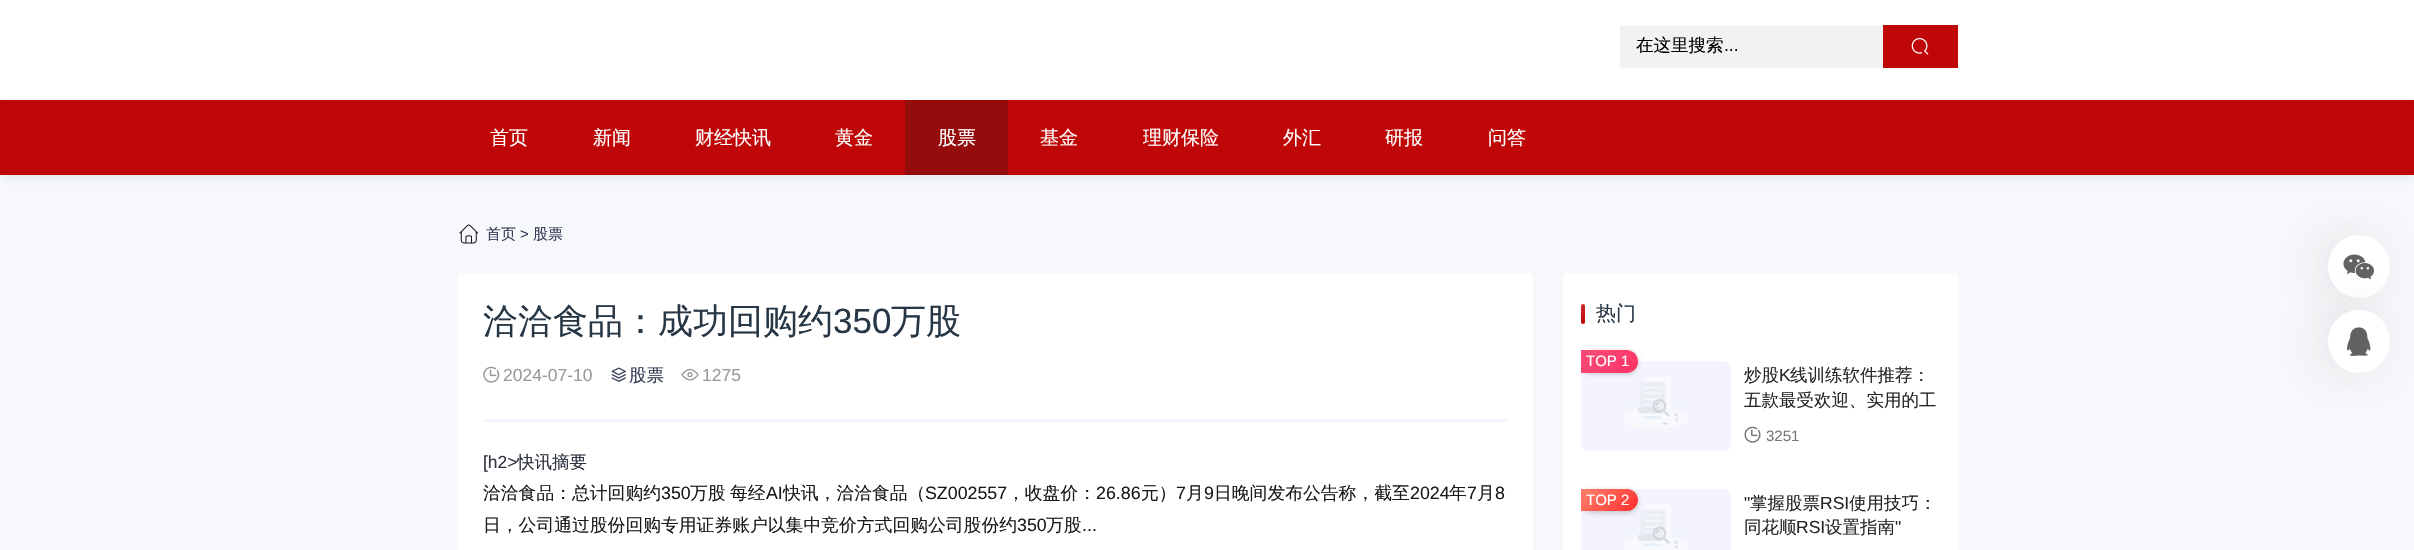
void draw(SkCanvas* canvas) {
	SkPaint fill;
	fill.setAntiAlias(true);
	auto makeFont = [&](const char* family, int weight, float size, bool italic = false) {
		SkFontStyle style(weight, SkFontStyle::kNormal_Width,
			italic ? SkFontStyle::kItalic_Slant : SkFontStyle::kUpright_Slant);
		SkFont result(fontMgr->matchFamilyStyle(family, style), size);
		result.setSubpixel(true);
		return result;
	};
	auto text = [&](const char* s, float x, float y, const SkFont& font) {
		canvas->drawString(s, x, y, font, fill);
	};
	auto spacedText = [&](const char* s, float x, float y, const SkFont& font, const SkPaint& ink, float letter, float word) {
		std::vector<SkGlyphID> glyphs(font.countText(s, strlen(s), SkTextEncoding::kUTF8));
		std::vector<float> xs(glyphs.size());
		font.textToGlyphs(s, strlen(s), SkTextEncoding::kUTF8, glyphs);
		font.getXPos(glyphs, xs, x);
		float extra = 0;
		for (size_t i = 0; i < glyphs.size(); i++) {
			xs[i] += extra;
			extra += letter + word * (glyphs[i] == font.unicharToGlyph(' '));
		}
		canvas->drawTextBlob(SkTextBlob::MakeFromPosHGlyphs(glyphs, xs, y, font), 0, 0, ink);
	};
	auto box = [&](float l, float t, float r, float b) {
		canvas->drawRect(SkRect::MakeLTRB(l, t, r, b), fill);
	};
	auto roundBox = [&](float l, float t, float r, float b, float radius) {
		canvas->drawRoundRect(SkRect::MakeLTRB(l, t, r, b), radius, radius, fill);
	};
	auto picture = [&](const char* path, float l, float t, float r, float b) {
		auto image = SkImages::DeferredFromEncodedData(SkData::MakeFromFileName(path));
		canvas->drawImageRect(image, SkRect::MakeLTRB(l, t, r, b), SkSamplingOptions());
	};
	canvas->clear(0xFFF6F8FB);
	fill.setColor(0xFFFFFFFF);
	box(0, 0, 2414, 100);
	fill.setColor(0xFFF2F2F2);
	canvas->drawRect(SkRect::MakeLTRB(1620.5f, 25.5f, 1882.5f, 67.5f), fill);
	fill.setStyle(SkPaint::kStroke_Style);
	fill.setStrokeWidth(1);
	fill.setColor(0xFFF4F4FF);
	canvas->drawRect(SkRect::MakeLTRB(1620.5f, 25.5f, 1882.5f, 67.5f), fill);
	fill.setStyle(SkPaint::kFill_Style);
	fill.setColor(0xFFBF0707);
	box(1883, 25, 1958, 68);
	picture("image0.png", 1911, 37, 1929, 55);
	fill.setColor(0x141D2939);
	fill.setMaskFilter(SkMaskFilter::MakeBlur(kNormal_SkBlurStyle, 5));
	canvas->drawRect(SkRect::MakeLTRB(0, 103, 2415, 178), fill);
	fill.setMaskFilter(nullptr);
	fill.setColor(0x52B5B5B5);
	fill.setMaskFilter(SkMaskFilter::MakeBlur(kNormal_SkBlurStyle, 22));
	canvas->drawRoundRect(SkRect::MakeLTRB(2318, 235, 2380, 298), 31, 31, fill);
	fill.setMaskFilter(nullptr);
	fill.setColor(0xFFBF0707);
	box(0, 100, 2414, 175);
	fill.setColor(0xFF940C0C);
	box(905, 100, 1008, 175);
	picture("image1.png", 459, 224, 479, 244);
	fill.setColor(0xFFFFFFFF);
	roundBox(458, 273, 1533, 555, 5);
	fill.setColor(0xFFF4F4FF);
	box(483, 419, 1508, 422);
	picture("image2.png", 483, 366, 500, 383);
	picture("image3.png", 611, 367, 626, 382);
	picture("image4.png", 681, 368, 699, 381);
	fill.setColor(0xFFFFFFFF);
	roundBox(1563, 273, 1958, 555, 5);
	fill.setColor(0xFFBF0707);
	roundBox(1581, 304, 1585, 324, 2);
	{
		const SkColor colors[] = {0x26FFFFFF, 0x00FFFFFF};
		const float stops[] = {0, 1};
		const SkPoint ends[] = {{1583, 304}, {1583, 324}};
		fill.setShader(SkGradientShader::MakeLinear(ends, colors, stops, 2, SkTileMode::kClamp));
		fill.setAlpha(255);
	}
	roundBox(1581, 304, 1585, 324, 2);
	picture("image5.png", 1581, 361, 1731, 451);
	canvas->save();
	canvas->clipRect(SkRect::MakeLTRB(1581, 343, 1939, 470));
	fill.setShader(nullptr);
	fill.setColor(0x33000000);
	fill.setMaskFilter(SkMaskFilter::MakeBlur(kNormal_SkBlurStyle, 2.5f));
	canvas->drawRoundRect(SkRect::MakeLTRB(1581, 351, 1638, 374), 11.5f, 11.5f, fill);
	fill.setMaskFilter(nullptr);
	canvas->restore();
	{
		const SkColor colors[] = {0xFFF84975, 0xFFFF3366};
		const float stops[] = {0.1f, 1};
		const SkPoint ends[] = {{1590, 342}, {1629, 381}};
		fill.setShader(SkGradientShader::MakeLinear(ends, colors, stops, 2, SkTileMode::kClamp));
		fill.setAlpha(255);
	}
	canvas->drawPath(SkPathBuilder().moveTo(1581, 350).lineTo(1626.5f, 350).cubicTo(1633, 350, 1638, 355, 1638, 361.5f).cubicTo(1638, 368, 1633, 373, 1626.5f, 373).lineTo(1581, 373).close().detach(), fill);
	picture("image6.png", 1744, 426, 1761, 443);
	picture("image7.png", 1581, 489, 1731, 550);
	canvas->save();
	canvas->clipRect(SkRect::MakeLTRB(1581, 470, 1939, 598));
	fill.setShader(nullptr);
	fill.setColor(0x33000000);
	fill.setMaskFilter(SkMaskFilter::MakeBlur(kNormal_SkBlurStyle, 2.5f));
	canvas->drawRoundRect(SkRect::MakeLTRB(1581, 490, 1638, 513), 11.5f, 11.5f, fill);
	fill.setMaskFilter(nullptr);
	canvas->restore();
	{
		const SkColor colors[] = {0xFFFF7A66, 0xFFFF2D2D};
		const float stops[] = {0.1f, 1};
		const SkPoint ends[] = {{1590, 480}, {1629, 520}};
		fill.setShader(SkGradientShader::MakeLinear(ends, colors, stops, 2, SkTileMode::kClamp));
		fill.setAlpha(255);
	}
	canvas->drawPath(SkPathBuilder().moveTo(1581, 489).lineTo(1627, 489).cubicTo(1633, 489, 1638, 494, 1638, 500).cubicTo(1638, 506, 1633, 511, 1627, 511).lineTo(1581, 511).close().detach(), fill);
	fill.setShader(nullptr);
	fill.setColor(0xFFFFFFFF);
	roundBox(2328, 235, 2390, 298, 31);
	picture("image8.png", 2343, 254, 2375, 280);
	fill.setColor(0x52B5B5B5);
	fill.setMaskFilter(SkMaskFilter::MakeBlur(kNormal_SkBlurStyle, 22));
	canvas->drawRoundRect(SkRect::MakeLTRB(2318, 310, 2380, 373), 31, 31, fill);
	fill.setMaskFilter(nullptr);
	fill.setColor(0xFFFFFFFF);
	roundBox(2328, 310, 2390, 373, 31);
	picture("image9.png", 2347, 327, 2371, 356);
	auto font1 = makeFont("WenQuanYi Zen Hei", 500, 17.5f);
	fill.setColor(0xFF000000);
	text("在这里搜索", 1636, 51, font1);
	auto font2 = makeFont("Liberation Sans", 400, 17.5f);
	text("...", 1724, 51, font2);
	auto font3 = makeFont("WenQuanYi Zen Hei", 500, 19);
	fill.setColor(0xFFFFFFFF);
	text("首页", 490, 144, font3);
	text("新闻", 593, 144, font3);
	text("财经快讯", 695, 144, font3);
	text("黄金", 835, 144, font3);
	text("股票", 938, 144, font3);
	text("基金", 1040, 144, font3);
	text("理财保险", 1143, 144, font3);
	text("外汇", 1283, 144, font3);
	text("研报", 1385, 144, font3);
	text("问答", 1488, 144, font3);
	auto font4 = makeFont("WenQuanYi Zen Hei", 500, 15);
	fill.setColor(0xFF333B55);
	text("首页", 486, 239, font4);
	auto font5 = makeFont("Liberation Sans", 400, 15);
	text(">", 520, 239, font5);
	text("股票", 533, 239, font4);
	auto font6 = makeFont("WenQuanYi Zen Hei", 500, 35);
	fill.setColor(0xFF273746);
	text("洽洽食品：成功回购约", 483, 333, font6);
	auto font7 = makeFont("Liberation Sans", 400, 35);
	text("350", 833, 333, font7);
	text("万股", 891, 333, font6);
	fill.setColor(0xFF999999);
	text("2024-07-10", 503, 381, font2);
	fill.setColor(0xFF333B55);
	text("股票", 629, 381, font1);
	fill.setColor(0xFF999999);
	text("1275", 702, 381, font2);
	fill.setColor(0xFF2F3340);
	text("[h2>", 483, 468, font2);
	text("快讯摘要", 517, 468, font1);
	auto font8 = makeFont("WenQuanYi Zen Hei", 500, 17.8f);
	fill.setColor(0xFF1A1A1A);
	text("洽洽食品：总计回购约", 483, 499, font8);
	auto font9 = makeFont("Liberation Sans", 400, 17.8f);
	text("350", 661, 499, font9);
	spacedText("万股 每经", 690, 499, font8, fill, 0, -1);
	text("AI", 766, 499, font9);
	text("快讯，洽洽食品（", 783, 499, font8);
	text("SZ002557", 925, 499, font9);
	text("，收盘价：", 1007, 499, font8);
	text("26.86", 1096, 499, font9);
	text("元）", 1141, 499, font8);
	text("7", 1176, 499, font9);
	text("月", 1186, 499, font8);
	text("9", 1204, 499, font9);
	text("日晚间发布公告称，截至", 1214, 499, font8);
	text("2024", 1410, 499, font9);
	text("年", 1449, 499, font8);
	text("7", 1467, 499, font9);
	text("月", 1477, 499, font8);
	text("8", 1495, 499, font9);
	text("日，公司通过股份回购专用证券账户以集中竞价方式回购公司股份约", 483, 531, font8);
	text("350", 1017, 531, font9);
	text("万股", 1046, 531, font8);
	text("...", 1082, 531, font9);
	auto font10 = makeFont("WenQuanYi Zen Hei", 500, 20);
	fill.setColor(0xFF273746);
	text("热门", 1596, 320, font10);
	fill.setColor(0xFFFFFFFF);
	text("TOP 1", 1586, 366, font5);
	fill.setColor(0xFF262626);
	text("炒股", 1744, 381, font1);
	text("K", 1779, 381, font2);
	text("线训练软件推荐：", 1790, 381, font1);
	text("五款最受欢迎、实用的工", 1744, 406, font1);
	fill.setColor(0xFF777777);
	text("3251", 1766, 441, font5);
	fill.setColor(0xFFFFFFFF);
	text("TOP 2", 1586, 505, font5);
	fill.setColor(0xFF262626);
	text("\"", 1744, 509, font2);
	text("掌握股票", 1750, 509, font1);
	text("RSI", 1820, 509, font2);
	text("使用技巧：", 1849, 509, font1);
	text("同花顺", 1744, 533, font1);
	text("RSI", 1796, 533, font2);
	text("设置指南", 1825, 533, font1);
	text("\"", 1895, 533, font2);
}
